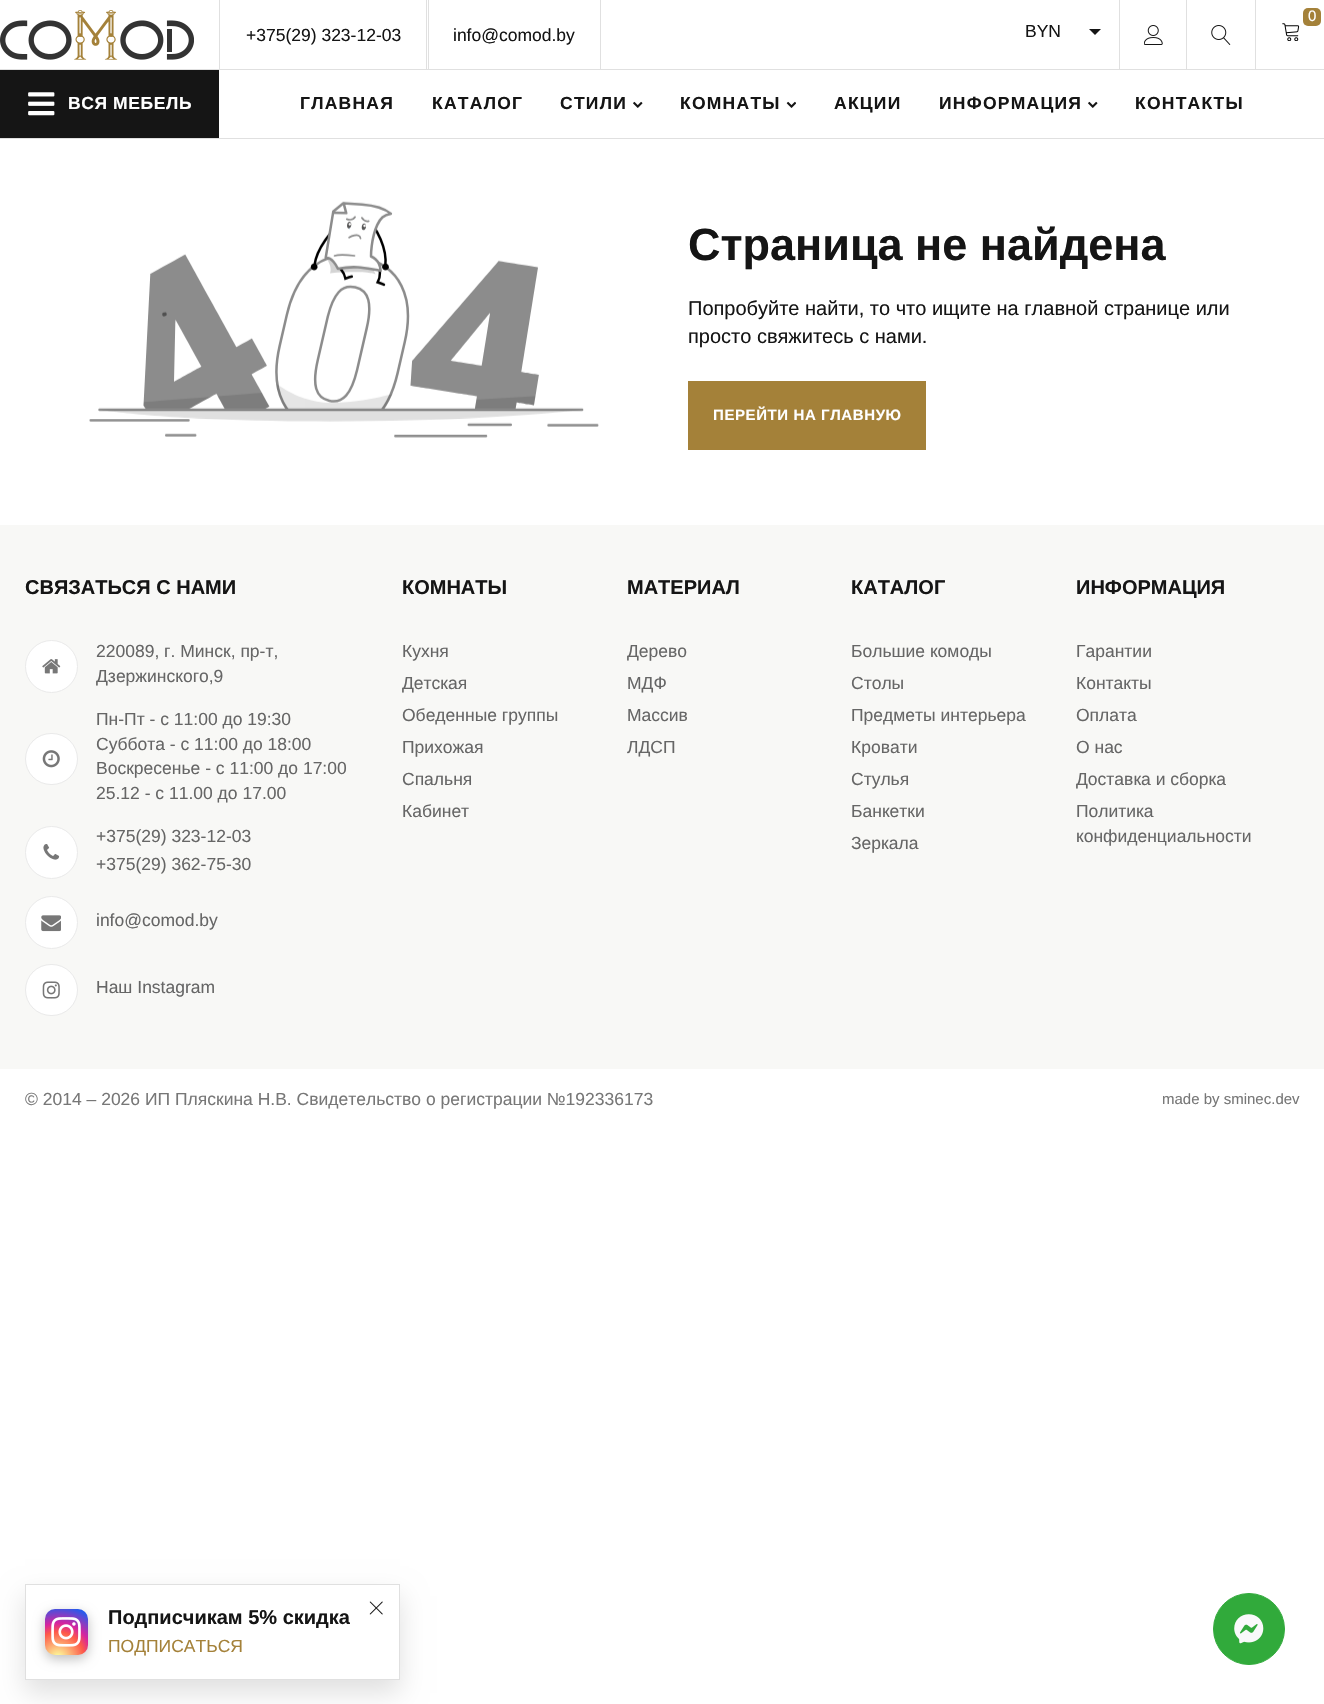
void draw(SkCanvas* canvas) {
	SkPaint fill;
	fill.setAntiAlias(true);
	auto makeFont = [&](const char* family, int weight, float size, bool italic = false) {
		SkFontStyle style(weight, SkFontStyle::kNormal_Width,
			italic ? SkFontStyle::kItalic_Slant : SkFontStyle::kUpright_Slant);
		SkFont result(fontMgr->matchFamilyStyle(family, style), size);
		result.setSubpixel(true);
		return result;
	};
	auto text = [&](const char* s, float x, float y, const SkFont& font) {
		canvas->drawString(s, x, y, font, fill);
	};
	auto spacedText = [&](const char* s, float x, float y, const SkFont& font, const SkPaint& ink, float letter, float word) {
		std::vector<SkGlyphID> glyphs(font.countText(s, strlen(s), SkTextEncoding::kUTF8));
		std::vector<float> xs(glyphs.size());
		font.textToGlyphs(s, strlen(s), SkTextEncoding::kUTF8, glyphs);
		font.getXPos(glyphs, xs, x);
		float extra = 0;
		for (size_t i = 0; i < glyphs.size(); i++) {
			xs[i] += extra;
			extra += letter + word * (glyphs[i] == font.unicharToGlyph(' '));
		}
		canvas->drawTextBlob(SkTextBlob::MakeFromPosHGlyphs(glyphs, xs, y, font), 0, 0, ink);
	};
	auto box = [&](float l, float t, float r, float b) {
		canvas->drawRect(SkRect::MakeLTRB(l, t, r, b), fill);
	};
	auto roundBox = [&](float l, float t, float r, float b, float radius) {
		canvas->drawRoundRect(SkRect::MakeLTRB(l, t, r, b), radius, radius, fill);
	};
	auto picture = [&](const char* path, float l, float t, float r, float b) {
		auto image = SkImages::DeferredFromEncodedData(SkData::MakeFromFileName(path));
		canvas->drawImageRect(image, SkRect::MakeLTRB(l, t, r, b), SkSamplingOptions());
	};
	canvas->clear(0xFFFFFFFF);
	picture("image0.png", 0, 10, 194, 60);
	fill.setColor(0xFFE0E0E0);
	box(426, 0, 427, 69);
	box(219, 0, 220, 69);
	box(600, 0, 601, 69);
	box(428, 0, 429, 69);
	box(1186, 0, 1187, 69);
	box(1119, 0, 1120, 69);
	picture("image1.png", 1144, 25, 1163, 45);
	box(1255, 0, 1256, 69);
	picture("image2.png", 1211, 25, 1231, 45);
	fill.setColor(0xFFA48139);
	roundBox(1303, 8, 1321, 26, 5);
	picture("image3.png", 1282, 23, 1300, 41);
	fill.setColor(0xFF151515);
	canvas->drawPath(SkPathBuilder().moveTo(1089, 29).lineTo(1101, 29).lineTo(1095, 35).close().detach(), fill);
	fill.setColor(0xFFE0E0E0);
	box(0, 69, 1324, 70);
	box(0, 138, 1324, 139);
	fill.setColor(0xFF151515);
	box(0, 70, 219, 138);
	picture("image4.png", 28, 92, 55, 116);
	picture("image5.png", 633, 101, 643, 108);
	picture("image6.png", 786, 101, 796, 108);
	picture("image5.png", 1088, 101, 1098, 108);
	picture("image7.png", 89, 201, 599, 438);
	fill.setColor(0xFFA48139);
	box(688, 381, 926, 450);
	fill.setColor(0xFFF8F8F6);
	box(0, 525, 1324, 1069);
	fill.setColor(0xFFFFFFFF);
	canvas->drawCircle(51.5f, 666.5f, 26, fill);
	fill.setStyle(SkPaint::kStroke_Style);
	fill.setStrokeWidth(1);
	fill.setColor(0xFFEAEAEA);
	canvas->drawCircle(51.5f, 666.5f, 26, fill);
	picture("image8.png", 42, 659, 61, 674);
	fill.setStyle(SkPaint::kFill_Style);
	fill.setColor(0xFFFFFFFF);
	canvas->drawRoundRect(SkRect::MakeLTRB(25.5f, 733.5f, 77.5f, 784.5f), 25.5f, 25.5f, fill);
	fill.setStyle(SkPaint::kStroke_Style);
	fill.setColor(0xFFEAEAEA);
	canvas->drawRoundRect(SkRect::MakeLTRB(25.5f, 733.5f, 77.5f, 784.5f), 25.5f, 25.5f, fill);
	picture("image9.png", 42, 750, 60, 768);
	fill.setStyle(SkPaint::kFill_Style);
	fill.setColor(0xFFFFFFFF);
	canvas->drawCircle(51.5f, 852.5f, 26, fill);
	fill.setStyle(SkPaint::kStroke_Style);
	fill.setColor(0xFFEAEAEA);
	canvas->drawCircle(51.5f, 852.5f, 26, fill);
	picture("image10.png", 43, 844, 60, 860);
	fill.setStyle(SkPaint::kFill_Style);
	fill.setColor(0xFFFFFFFF);
	canvas->drawCircle(51.5f, 922.5f, 26, fill);
	fill.setStyle(SkPaint::kStroke_Style);
	fill.setColor(0xFFEAEAEA);
	canvas->drawCircle(51.5f, 922.5f, 26, fill);
	picture("image11.png", 41, 915, 61, 932);
	fill.setStyle(SkPaint::kFill_Style);
	fill.setColor(0xFFFFFFFF);
	canvas->drawRoundRect(SkRect::MakeLTRB(25.5f, 964.5f, 77.5f, 1015.5f), 25.5f, 25.5f, fill);
	fill.setStyle(SkPaint::kStroke_Style);
	fill.setColor(0xFFEAEAEA);
	canvas->drawRoundRect(SkRect::MakeLTRB(25.5f, 964.5f, 77.5f, 1015.5f), 25.5f, 25.5f, fill);
	picture("image12.png", 42, 981, 60, 999);
	canvas->save();
	canvas->clipPath(SkPathBuilder(SkPathFillType::kEvenOdd).moveTo(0, 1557).lineTo(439, 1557).lineTo(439, 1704).lineTo(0, 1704).close().moveTo(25, 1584).lineTo(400, 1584).lineTo(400, 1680).lineTo(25, 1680).close().detach(), true);
	fill.setStyle(SkPaint::kFill_Style);
	fill.setColor(0xFFE0E0E0);
	fill.setMaskFilter(SkMaskFilter::MakeBlur(kNormal_SkBlurStyle, 12.5f));
	canvas->drawRect(SkRect::MakeLTRB(25, 1596, 400, 1693), fill);
	fill.setMaskFilter(nullptr);
	canvas->restore();
	fill.setStyle(SkPaint::kStroke_Style);
	canvas->drawRect(SkRect::MakeLTRB(25.5f, 1584.5f, 399.5f, 1679.5f), fill);
	picture("image13.png", 369, 1601, 383, 1615);
	fill.setStyle(SkPaint::kFill_Style);
	fill.setColor(0x40000000);
	fill.setMaskFilter(SkMaskFilter::MakeBlur(kNormal_SkBlurStyle, 6));
	canvas->drawRoundRect(SkRect::MakeLTRB(45, 1613, 88, 1659), 10, 10, fill);
	fill.setMaskFilter(nullptr);
	{
		const SkColor colors[] = {0xFFFDF497, 0xFFFDF497, 0xFFFD5949, 0xFFD6249F, 0xFF285AEB};
		const float stops[] = {0, 0.05f, 0.45f, 0.6f, 0.9f};
		fill.setShader(SkGradientShader::MakeRadial({58, 1658}, 58, colors, stops, 5, SkTileMode::kClamp));
		fill.setAlpha(255);
	}
	roundBox(45, 1609, 88, 1655, 10);
	picture("image14.png", 51, 1617, 81, 1647);
	fill.setShader(nullptr);
	fill.setColor(0xFF31AA3B);
	canvas->drawCircle(1249, 1629, 35.5f, fill);
	fill.setStyle(SkPaint::kStroke_Style);
	canvas->drawCircle(1249, 1629, 35.5f, fill);
	picture("image15.png", 1234, 1614, 1264, 1644);
	auto font1 = makeFont("Liberation Sans", 400, 17.5f);
	fill.setStyle(SkPaint::kFill_Style);
	fill.setColor(0xFF151515);
	text("+375(29) 323-12-03", 246, 41, font1);
	text("info@comod.by", 453, 41, font1);
	auto font2 = makeFont("Liberation Sans", 400, 15);
	fill.setColor(0xFFFFFFFF);
	text("0", 1308, 21, font2);
	fill.setColor(0xFF151515);
	text("BYN", 1025, 37, font1);
	auto font3 = makeFont("Liberation Sans", 700, 17.5f);
	fill.setColor(0xFFFFFFFF);
	spacedText("ВСЯ МЕБЕЛЬ", 68, 109, font3, fill, 0.6f, 0);
	fill.setColor(0xFF151515);
	spacedText("ГЛАВНАЯ", 300, 109, font3, fill, 1.25f, 0);
	spacedText("КАТАЛОГ", 432, 109, font3, fill, 1.25f, 0);
	spacedText("СТИЛИ", 560, 109, font3, fill, 1.25f, 0);
	spacedText("КОМНАТЫ", 680, 109, font3, fill, 1.25f, 0);
	spacedText("АКЦИИ", 834, 109, font3, fill, 1.25f, 0);
	spacedText("ИНФОРМАЦИЯ", 939, 109, font3, fill, 1.25f, 0);
	spacedText("КОНТАКТЫ", 1135, 109, font3, fill, 1.25f, 0);
	auto font4 = makeFont("Liberation Sans", 700, 45);
	text("Страница не найдена", 688, 260, font4);
	auto font5 = makeFont("Liberation Sans", 400, 20);
	text("Попробуйте найти, то что ищите на главной странице или", 688, 315, font5);
	text("просто свяжитесь с нами.", 688, 343, font5);
	auto font6 = makeFont("Liberation Sans", 700, 15);
	fill.setColor(0xFFFFFFFF);
	spacedText("ПЕРЕЙТИ НА ГЛАВНУЮ", 713, 420, font6, fill, 0.6f, 0);
	auto font7 = makeFont("Liberation Sans", 700, 20);
	fill.setColor(0xFF151515);
	text("СВЯЗАТЬСЯ С НАМИ", 25, 594, font7);
	fill.setColor(0xFF666666);
	text("220089, г. Минск, пр-т,", 96, 657, font1);
	text("Дзержинского,9", 96, 682, font1);
	text("Пн-Пт - с 11:00 до 19:30", 96, 725, font1);
	text("Суббота - с 11:00 до 18:00", 96, 750, font1);
	text("Воскресенье - c 11:00 до 17:00", 96, 774, font1);
	text("25.12 - с 11.00 до 17.00", 96, 799, font1);
	text("+375(29) 323-12-03", 96, 842, font1);
	text("+375(29) 362-75-30", 96, 870, font1);
	text("info@comod.by", 96, 926, font1);
	text("Наш Instagram", 96, 993, font1);
	fill.setColor(0xFF151515);
	text("КОМНАТЫ", 402, 594, font7);
	fill.setColor(0xFF666666);
	text("Кухня", 402, 657, font1);
	text("Детская", 402, 689, font1);
	text("Обеденные группы", 402, 721, font1);
	text("Прихожая", 402, 753, font1);
	text("Спальня", 402, 785, font1);
	text("Кабинет", 402, 817, font1);
	fill.setColor(0xFF151515);
	text("МАТЕРИАЛ", 627, 594, font7);
	fill.setColor(0xFF666666);
	text("Дерево", 627, 657, font1);
	text("МДФ", 627, 689, font1);
	text("Массив", 627, 721, font1);
	text("ЛДСП", 627, 753, font1);
	fill.setColor(0xFF151515);
	text("КАТАЛОГ", 851, 594, font7);
	fill.setColor(0xFF666666);
	text("Большие комоды", 851, 657, font1);
	text("Столы", 851, 689, font1);
	text("Предметы интерьера", 851, 721, font1);
	text("Кровати", 851, 753, font1);
	text("Стулья", 851, 785, font1);
	text("Банкетки", 851, 817, font1);
	text("Зеркала", 851, 849, font1);
	fill.setColor(0xFF151515);
	text("ИНФОРМАЦИЯ", 1076, 594, font7);
	fill.setColor(0xFF666666);
	text("Гарантии", 1076, 657, font1);
	text("Контакты", 1076, 689, font1);
	text("Оплата", 1076, 721, font1);
	text("О нас", 1076, 753, font1);
	text("Доставка и сборка", 1076, 785, font1);
	text("Политика", 1076, 817, font1);
	text("конфиденциальности", 1076, 842, font1);
	fill.setColor(0xFF777777);
	text("© 2014 – 2026 ИП Пляскина Н.В. Свидетельство о регистрации №192336173", 25, 1105, font1);
	text("made by sminec.dev", 1162, 1104, font2);
	fill.setColor(0xFF151515);
	text("Подписчикам 5% скидка", 108, 1624, font7);
	fill.setColor(0xFFA48139);
	text("ПОДПИСАТЬСЯ", 108, 1652, font1);
}
